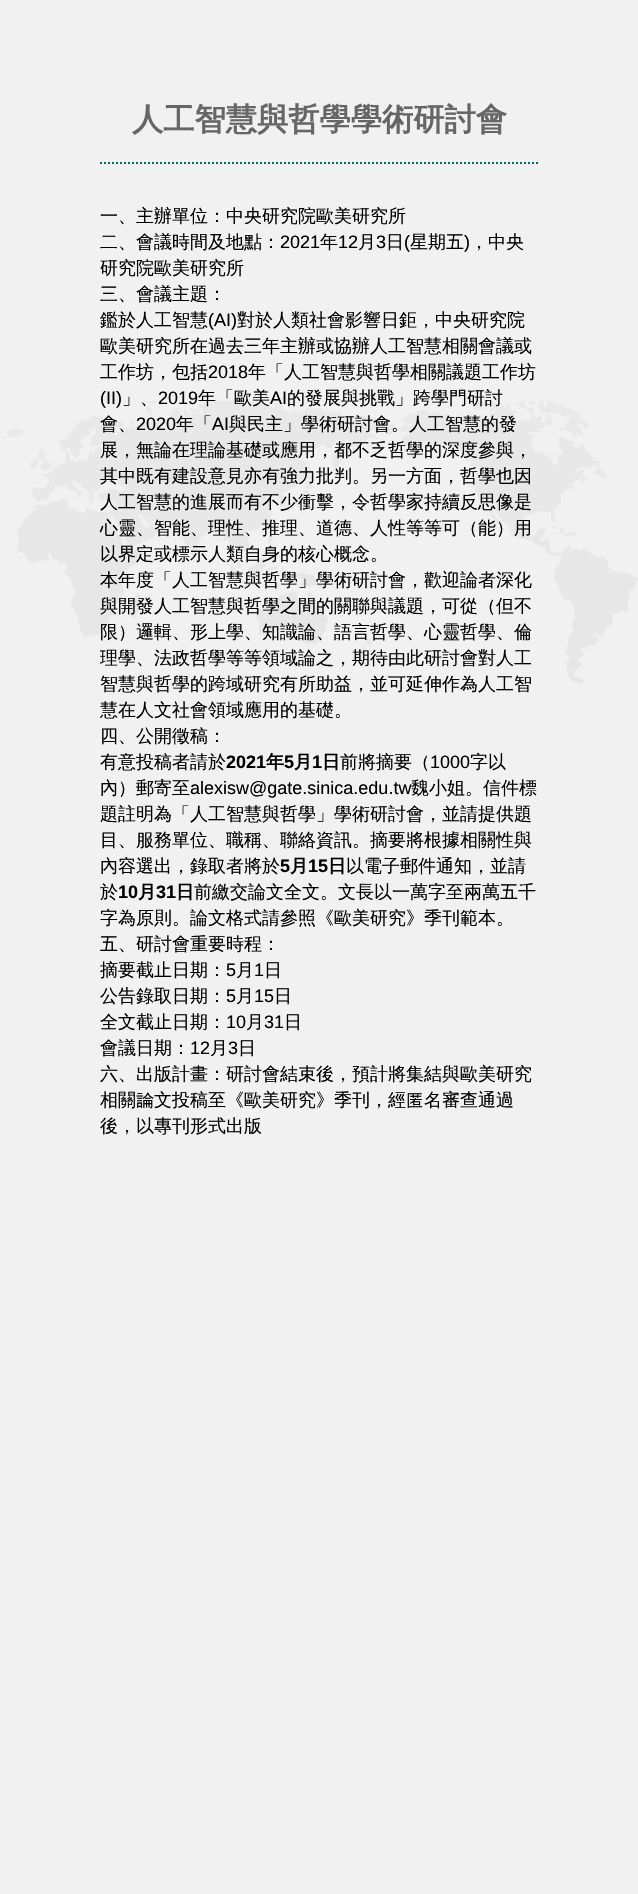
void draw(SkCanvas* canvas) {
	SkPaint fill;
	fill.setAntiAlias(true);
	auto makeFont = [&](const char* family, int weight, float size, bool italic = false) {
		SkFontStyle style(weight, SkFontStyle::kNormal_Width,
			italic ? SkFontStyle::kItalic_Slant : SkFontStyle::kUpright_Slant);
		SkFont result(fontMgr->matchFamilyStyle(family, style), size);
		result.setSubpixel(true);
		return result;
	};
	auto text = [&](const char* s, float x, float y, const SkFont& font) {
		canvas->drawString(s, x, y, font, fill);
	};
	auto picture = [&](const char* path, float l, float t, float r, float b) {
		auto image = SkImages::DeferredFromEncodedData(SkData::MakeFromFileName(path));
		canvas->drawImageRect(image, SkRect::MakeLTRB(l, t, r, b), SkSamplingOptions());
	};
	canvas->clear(0xFFF1F1F1);
	picture("image0.png", 5, 401, 638, 684);
	fill.setStyle(SkPaint::kStroke_Style);
	fill.setStrokeWidth(2);
	fill.setColor(0xFF006666);
	fill.setPathEffect(SkDashPathEffect::Make({{2, 2}}, 0));
	canvas->drawPath(SkPathBuilder().moveTo(100, 163).lineTo(538, 163).detach(), fill);
	fill.setPathEffect(nullptr);
	auto font1 = makeFont("WenQuanYi Zen Hei", 700, 31.25f);
	fill.setStyle(SkPaint::kFill_Style);
	fill.setColor(0xFF666666);
	text("人工智慧與哲學學術研討會", 132, 130, font1);
	auto font2 = makeFont("WenQuanYi Zen Hei", 500, 18);
	fill.setColor(0xFF000000);
	text("一、主辦單位：中央研究院歐美研究所", 100, 222, font2);
	text("二、會議時間及地點：", 100, 248, font2);
	auto font3 = makeFont("Liberation Sans", 400, 18);
	text("2021", 280, 248, font3);
	text("年", 320, 248, font2);
	text("12", 338, 248, font3);
	text("月", 358, 248, font2);
	text("3", 376, 248, font3);
	text("日", 386, 248, font2);
	text("(", 404, 248, font3);
	text("星期五", 410, 248, font2);
	text(")", 464, 248, font3);
	text("，中央", 470, 248, font2);
	text("研究院歐美研究所", 100, 274, font2);
	text("三、會議主題：", 100, 300, font2);
	text("鑑於人工智慧", 100, 326, font2);
	text("(AI)", 208, 326, font3);
	text("對於人類社會影響日鉅，中央研究院", 237, 326, font2);
	text("歐美研究所在過去三年主辦或協辦人工智慧相關會議或", 100, 352, font2);
	text("工作坊，包括", 100, 378, font2);
	text("2018", 208, 378, font3);
	text("年「人工智慧與哲學相關議題工作坊", 248, 378, font2);
	text("(II)", 100, 404, font3);
	text("」、", 122, 404, font2);
	text("2019", 158, 404, font3);
	text("年「歐美", 198, 404, font2);
	text("AI", 270, 404, font3);
	text("的發展與挑戰」跨學門研討", 287, 404, font2);
	text("會、", 100, 430, font2);
	text("2020", 136, 430, font3);
	text("年「", 176, 430, font2);
	text("AI", 212, 430, font3);
	text("與民主」學術研討會。人工智慧的發", 229, 430, font2);
	text("展，無論在理論基礎或應用，都不乏哲學的深度參與，", 100, 456, font2);
	text("其中既有建設意見亦有強力批判。另一方面，哲學也因", 100, 482, font2);
	text("人工智慧的進展而有不少衝擊，令哲學家持續反思像是", 100, 508, font2);
	text("心靈、智能、理性、推理、道德、人性等等可（能）用", 100, 534, font2);
	text("以界定或標示人類自身的核心概念。", 100, 560, font2);
	text("本年度「人工智慧與哲學」學術研討會，歡迎論者深化", 100, 586, font2);
	text("與開發人工智慧與哲學之間的關聯與議題，可從（但不", 100, 612, font2);
	text("限）邏輯、形上學、知識論、語言哲學、心靈哲學、倫", 100, 638, font2);
	text("理學、法政哲學等等領域論之，期待由此研討會對人工", 100, 664, font2);
	text("智慧與哲學的跨域研究有所助益，並可延伸作為人工智", 100, 690, font2);
	text("慧在人文社會領域應用的基礎。", 100, 716, font2);
	text("四、公開徵稿：", 100, 742, font2);
	text("有意投稿者請於", 100, 768, font2);
	auto font4 = makeFont("Liberation Sans", 700, 18);
	text("2021", 226, 768, font4);
	auto font5 = makeFont("WenQuanYi Zen Hei", 700, 18);
	text("年", 266, 768, font5);
	text("5", 284, 768, font4);
	text("月", 294, 768, font5);
	text("1", 312, 768, font4);
	text("日", 322, 768, font5);
	text("前將摘要（", 340, 768, font2);
	text("1000", 430, 768, font3);
	text("字以", 470, 768, font2);
	text("內）郵寄至", 100, 794, font2);
	text("alexisw@gate.sinica.edu.tw", 190, 794, font3);
	text("魏小姐。信件標", 411, 794, font2);
	text("題註明為「人工智慧與哲學」學術研討會，並請提供題", 100, 820, font2);
	text("目、服務單位、職稱、聯絡資訊。摘要將根據相關性與", 100, 846, font2);
	text("內容選出，錄取者將於", 100, 872, font2);
	text("5", 280, 872, font4);
	text("月", 290, 872, font5);
	text("15", 308, 872, font4);
	text("日", 328, 872, font5);
	text("以電子郵件通知，並請", 346, 872, font2);
	text("於", 100, 898, font2);
	text("10", 118, 898, font4);
	text("月", 138, 898, font5);
	text("31", 156, 898, font4);
	text("日", 176, 898, font5);
	text("前繳交論文全文。文長以一萬字至兩萬五千", 194, 898, font2);
	text("字為原則。論文格式請參照《歐美研究》季刊範本。", 100, 924, font2);
	text("五、研討會重要時程：", 100, 950, font2);
	text("摘要截止日期：", 100, 976, font2);
	text("5", 226, 976, font3);
	text("月", 236, 976, font2);
	text("1", 254, 976, font3);
	text("日", 264, 976, font2);
	text("公告錄取日期：", 100, 1002, font2);
	text("5", 226, 1002, font3);
	text("月", 236, 1002, font2);
	text("15", 254, 1002, font3);
	text("日", 274, 1002, font2);
	text("全文截止日期：", 100, 1028, font2);
	text("10", 226, 1028, font3);
	text("月", 246, 1028, font2);
	text("31", 264, 1028, font3);
	text("日", 284, 1028, font2);
	text("會議日期：", 100, 1054, font2);
	text("12", 190, 1054, font3);
	text("月", 210, 1054, font2);
	text("3", 228, 1054, font3);
	text("日", 238, 1054, font2);
	text("六、出版計畫：研討會結束後，預計將集結與歐美研究", 100, 1080, font2);
	text("相關論文投稿至《歐美研究》季刊，經匿名審查通過", 100, 1106, font2);
	text("後，以專刊形式出版", 100, 1132, font2);
}
